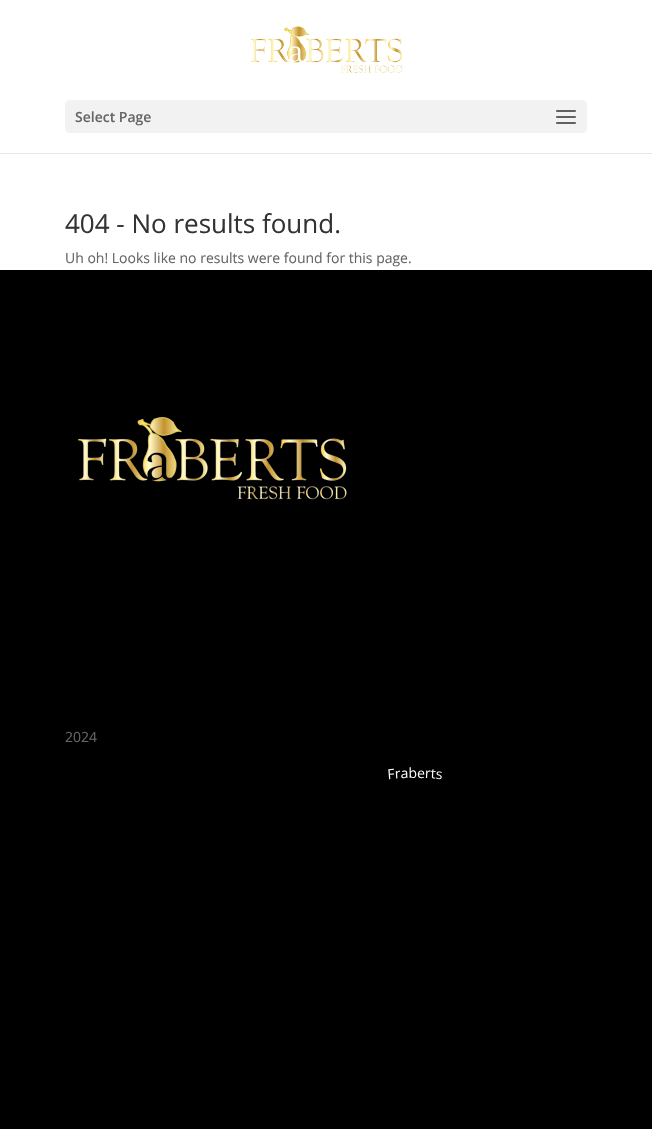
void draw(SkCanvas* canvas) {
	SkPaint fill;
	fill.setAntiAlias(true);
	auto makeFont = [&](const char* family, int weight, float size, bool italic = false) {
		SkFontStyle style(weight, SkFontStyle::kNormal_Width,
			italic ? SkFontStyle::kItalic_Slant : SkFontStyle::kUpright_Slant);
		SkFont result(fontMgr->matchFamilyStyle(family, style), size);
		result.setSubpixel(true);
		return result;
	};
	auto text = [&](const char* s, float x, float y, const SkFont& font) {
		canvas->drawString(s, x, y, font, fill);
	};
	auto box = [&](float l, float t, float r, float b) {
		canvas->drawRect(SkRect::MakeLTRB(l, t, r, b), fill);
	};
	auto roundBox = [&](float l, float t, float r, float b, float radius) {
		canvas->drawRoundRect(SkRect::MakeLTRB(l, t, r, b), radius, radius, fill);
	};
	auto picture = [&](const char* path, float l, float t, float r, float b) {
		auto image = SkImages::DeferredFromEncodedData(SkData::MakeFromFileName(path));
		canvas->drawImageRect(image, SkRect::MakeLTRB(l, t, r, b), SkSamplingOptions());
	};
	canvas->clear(0xFF000000);
	fill.setColor(0xFFE6E6E6);
	box(0, 153, 652, 154);
	fill.setColor(0xFFFFFFFF);
	box(0, 0, 652, 153);
	picture("image0.png", 250, 26, 403, 73);
	fill.setColor(0xFFF2F2F2);
	roundBox(65, 100, 587, 133, 5);
	picture("image1.png", 556, 110, 576, 124);
	fill.setColor(0xFFFFFFFF);
	box(0, 154, 652, 270);
	picture("image2.png", 78, 417, 347, 500);
	picture("image3.png", 388, 767, 442, 780);
	auto font1 = makeFont("Open Sans", 600, 14);
	fill.setColor(0xFF666666);
	text("Select Page", 75, 122, font1);
	auto font2 = makeFont("Open Sans", 400, 26);
	fill.setColor(0xFF333333);
	text("404 - No results found.", 65, 233, font2);
	auto font3 = makeFont("Open Sans", 400, 14);
	fill.setColor(0xFF666666);
	text("Uh oh! Looks like no results were found for this page.", 65, 263, font3);
	text("2024", 65, 742, font3);
}
